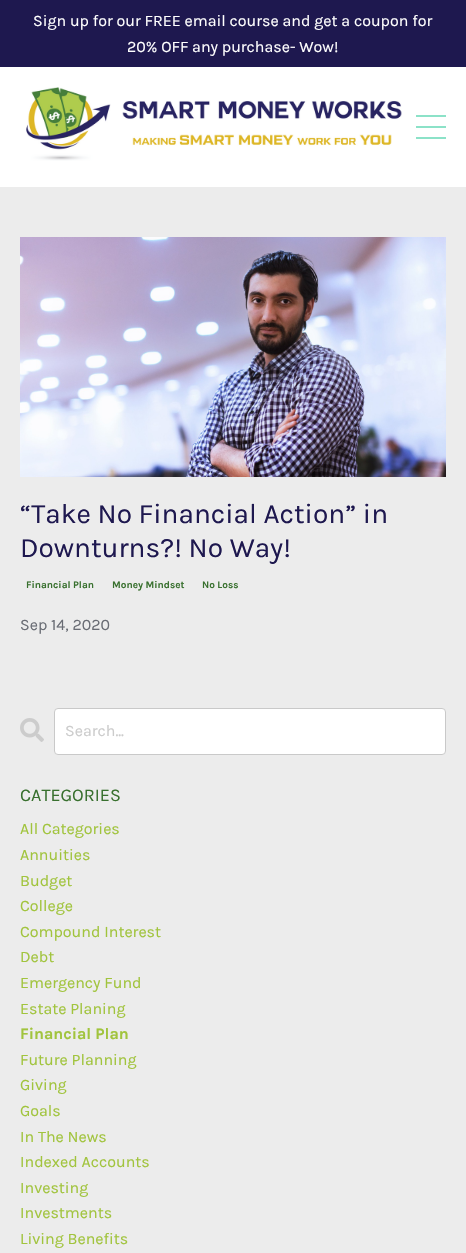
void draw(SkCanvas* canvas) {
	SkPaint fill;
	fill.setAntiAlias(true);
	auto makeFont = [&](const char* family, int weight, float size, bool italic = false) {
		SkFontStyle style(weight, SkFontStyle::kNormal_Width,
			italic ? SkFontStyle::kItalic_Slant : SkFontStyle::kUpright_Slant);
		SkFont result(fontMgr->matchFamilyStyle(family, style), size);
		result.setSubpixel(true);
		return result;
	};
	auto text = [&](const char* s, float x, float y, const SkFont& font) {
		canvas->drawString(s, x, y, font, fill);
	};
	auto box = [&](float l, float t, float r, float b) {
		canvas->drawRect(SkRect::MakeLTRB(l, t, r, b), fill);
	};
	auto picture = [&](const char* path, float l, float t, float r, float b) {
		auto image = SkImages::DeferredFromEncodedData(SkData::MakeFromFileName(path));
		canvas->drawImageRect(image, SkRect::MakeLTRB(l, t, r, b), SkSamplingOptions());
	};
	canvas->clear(0xFFECECEC);
	fill.setColor(0xFFFFFFFF);
	box(0, 67, 466, 187);
	fill.setColor(0xFF1E184F);
	box(0, 0, 466, 67);
	picture("image0.png", 26, 87, 402, 161);
	fill.setColor(0xFF8CE2C8);
	box(416, 115, 446, 117);
	box(416, 126, 446, 128);
	box(416, 137, 446, 139);
	picture("image1.png", 20, 237, 446, 477);
	picture("image2.png", 20, 718, 44, 742);
	fill.setColor(0xFFFFFFFF);
	canvas->drawRoundRect(SkRect::MakeLTRB(54.5f, 708.5f, 445.5f, 754.5f), 3.5f, 3.5f, fill);
	fill.setStyle(SkPaint::kStroke_Style);
	fill.setStrokeWidth(1);
	fill.setColor(0xFFC9C9C9);
	canvas->drawRoundRect(SkRect::MakeLTRB(54.5f, 708.5f, 445.5f, 754.5f), 3.5f, 3.5f, fill);
	auto font1 = makeFont("Karla", 400, 16);
	fill.setStyle(SkPaint::kFill_Style);
	fill.setColor(0xFFFFFFFF);
	text("Sign up for our FREE email course and get a coupon for", 33, 26, font1);
	text("20% OFF any purchase- Wow!", 127, 52, font1);
	auto font2 = makeFont("Karla", 400, 28);
	fill.setColor(0xFF1E184F);
	text("“Take No Financial Action” in", 20, 523, font2);
	text("Downturns?! No Way!", 20, 557, font2);
	auto font3 = makeFont("Karla", 700, 10);
	fill.setColor(0xFF38702E);
	text("Financial Plan", 26, 588, font3);
	text("Money Mindset", 112, 588, font3);
	text("No Loss", 202, 588, font3);
	fill.setColor(0xFF696C74);
	text("Sep 14, 2020", 20, 630, font1);
	fill.setColor(0xFFCCCCCC);
	text("Search...", 65, 736, font1);
	auto font4 = makeFont("Karla", 400, 18);
	fill.setColor(0xFF38702E);
	text("CATEGORIES", 20, 801, font4);
	fill.setColor(0xFFA1C43D);
	text("All Categories", 20, 834, font1);
	text("Annuities", 20, 860, font1);
	text("Budget", 20, 886, font1);
	text("College", 20, 911, font1);
	text("Compound Interest", 20, 937, font1);
	text("Debt", 20, 962, font1);
	text("Emergency Fund", 20, 988, font1);
	text("Estate Planing", 20, 1014, font1);
	auto font5 = makeFont("Karla", 700, 16);
	text("Financial Plan", 20, 1039, font5);
	text("Future Planning", 20, 1065, font1);
	text("Giving", 20, 1090, font1);
	text("Goals", 20, 1116, font1);
	text("In The News", 20, 1142, font1);
	text("Indexed Accounts", 20, 1167, font1);
	text("Investing", 20, 1193, font1);
	text("Investments", 20, 1218, font1);
	text("Living Benefits", 20, 1244, font1);
}
